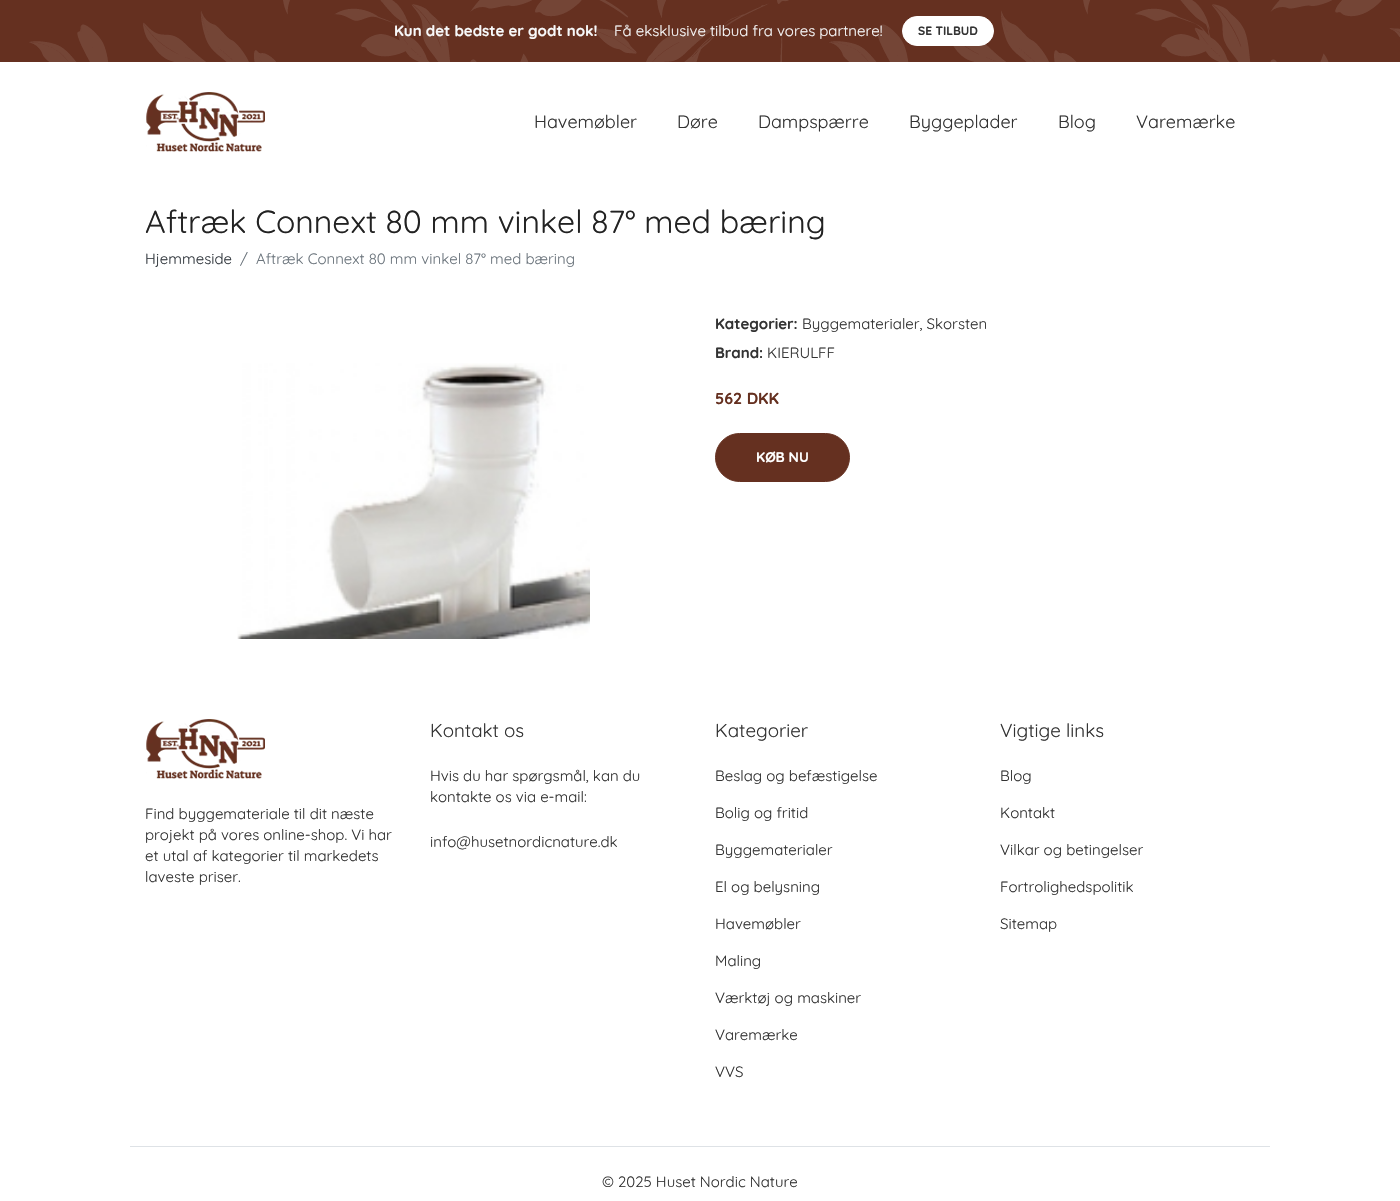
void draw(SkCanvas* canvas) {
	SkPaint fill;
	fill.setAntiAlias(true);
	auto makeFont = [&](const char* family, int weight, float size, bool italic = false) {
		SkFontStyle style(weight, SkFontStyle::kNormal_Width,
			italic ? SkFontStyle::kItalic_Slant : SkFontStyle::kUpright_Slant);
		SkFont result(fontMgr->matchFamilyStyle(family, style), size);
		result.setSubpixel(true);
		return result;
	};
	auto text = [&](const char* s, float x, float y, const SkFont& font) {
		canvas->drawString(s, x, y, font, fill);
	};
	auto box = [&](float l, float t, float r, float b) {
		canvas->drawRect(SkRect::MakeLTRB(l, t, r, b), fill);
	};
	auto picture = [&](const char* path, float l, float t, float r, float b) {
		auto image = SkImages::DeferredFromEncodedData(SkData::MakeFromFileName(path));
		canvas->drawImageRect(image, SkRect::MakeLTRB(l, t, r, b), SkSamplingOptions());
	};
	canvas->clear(0xFFFFFFFF);
	fill.setColor(0xFF653020);
	box(0, 0, 29, 62);
	picture("image0.png", 29, 0, 1400, 62);
	fill.setColor(0xFFFFFFFF);
	canvas->drawRoundRect(SkRect::MakeLTRB(902.5f, 16.5f, 993.5f, 45.5f), 14.5f, 14.5f, fill);
	fill.setStyle(SkPaint::kStroke_Style);
	fill.setStrokeWidth(1);
	canvas->drawRoundRect(SkRect::MakeLTRB(902.5f, 16.5f, 993.5f, 45.5f), 14.5f, 14.5f, fill);
	picture("image1.png", 146, 92, 265, 152);
	picture("image2.png", 237, 363, 590, 639);
	fill.setStyle(SkPaint::kFill_Style);
	fill.setColor(0xFF653020);
	canvas->drawRoundRect(SkRect::MakeLTRB(715.5f, 433.5f, 849.5f, 481.5f), 24, 24, fill);
	fill.setStyle(SkPaint::kStroke_Style);
	canvas->drawRoundRect(SkRect::MakeLTRB(715.5f, 433.5f, 849.5f, 481.5f), 24, 24, fill);
	fill.setStyle(SkPaint::kFill_Style);
	fill.setColor(0xFFDEE2E6);
	box(130, 1146, 1270, 1147);
	picture("image1.png", 146, 719, 265, 779);
	auto font1 = makeFont("Quicksand", 700, 15);
	fill.setColor(0xFFF8F9FA);
	text("Kun det bedste er godt nok!", 394, 36, font1);
	auto font2 = makeFont("Quicksand", 400, 15);
	text("Få eksklusive tilbud fra vores partnere!", 614, 36, font2);
	auto font3 = makeFont("Quicksand", 700, 12);
	fill.setColor(0xFF333333);
	text("SE TILBUD", 918, 35, font3);
	auto font4 = makeFont("Quicksand", 400, 18);
	text("Havemøbler", 534, 128, font4);
	text("Døre", 677, 128, font4);
	text("Dampspærre", 758, 128, font4);
	text("Byggeplader", 909, 128, font4);
	text("Blog", 1058, 128, font4);
	text("Varemærke", 1136, 128, font4);
	auto font5 = makeFont("Quicksand", 400, 32);
	fill.setColor(0xFF222222);
	text("Aftræk Connext 80 mm vinkel 87° med bæring", 145, 233, font5);
	fill.setColor(0xFF343A40);
	text("Hjemmeside", 145, 264, font2);
	fill.setColor(0xFF6C757D);
	text("/", 240, 264, font2);
	text("Aftræk Connext 80 mm vinkel 87° med bæring", 256, 264, font2);
	fill.setColor(0xFF333333);
	text("Kategorier:", 715, 329, font1);
	text("Byggematerialer, Skorsten", 802, 329, font2);
	text("Brand:", 715, 358, font1);
	text("KIERULFF", 767, 358, font2);
	auto font6 = makeFont("Quicksand", 700, 16);
	fill.setColor(0xFF653020);
	text("562 DKK", 715, 404, font6);
	auto font7 = makeFont("Quicksand", 700, 14);
	fill.setColor(0xFFFFFFFF);
	text("KØB NU", 756, 462, font7);
	fill.setColor(0xFF333333);
	text("Find byggemateriale til dit næste", 145, 819, font2);
	text("projekt på vores online-shop. Vi har", 145, 840, font2);
	text("et utal af kategorier til markedets", 145, 861, font2);
	text("laveste priser.", 145, 882, font2);
	auto font8 = makeFont("Quicksand", 400, 18.75f);
	text("Kontakt os", 430, 737, font8);
	text("Hvis du har spørgsmål, kan du", 430, 781, font2);
	text("kontakte os via e-mail:", 430, 802, font2);
	text("info@husetnordicnature.dk", 430, 847, font2);
	text("Kategorier", 715, 737, font8);
	text("Beslag og befæstigelse", 715, 781, font2);
	text("Bolig og fritid", 715, 818, font2);
	text("Byggematerialer", 715, 855, font2);
	text("El og belysning", 715, 892, font2);
	text("Havemøbler", 715, 929, font2);
	text("Maling", 715, 966, font2);
	text("Værktøj og maskiner", 715, 1003, font2);
	text("Varemærke", 715, 1040, font2);
	text("VVS", 715, 1077, font2);
	text("Vigtige links", 1000, 737, font8);
	text("Blog", 1000, 781, font2);
	text("Kontakt", 1000, 818, font2);
	text("Vilkar og betingelser", 1000, 855, font2);
	text("Fortrolighedspolitik", 1000, 892, font2);
	text("Sitemap", 1000, 929, font2);
	text("© 2025 Huset Nordic Nature", 602, 1187, font2);
}
